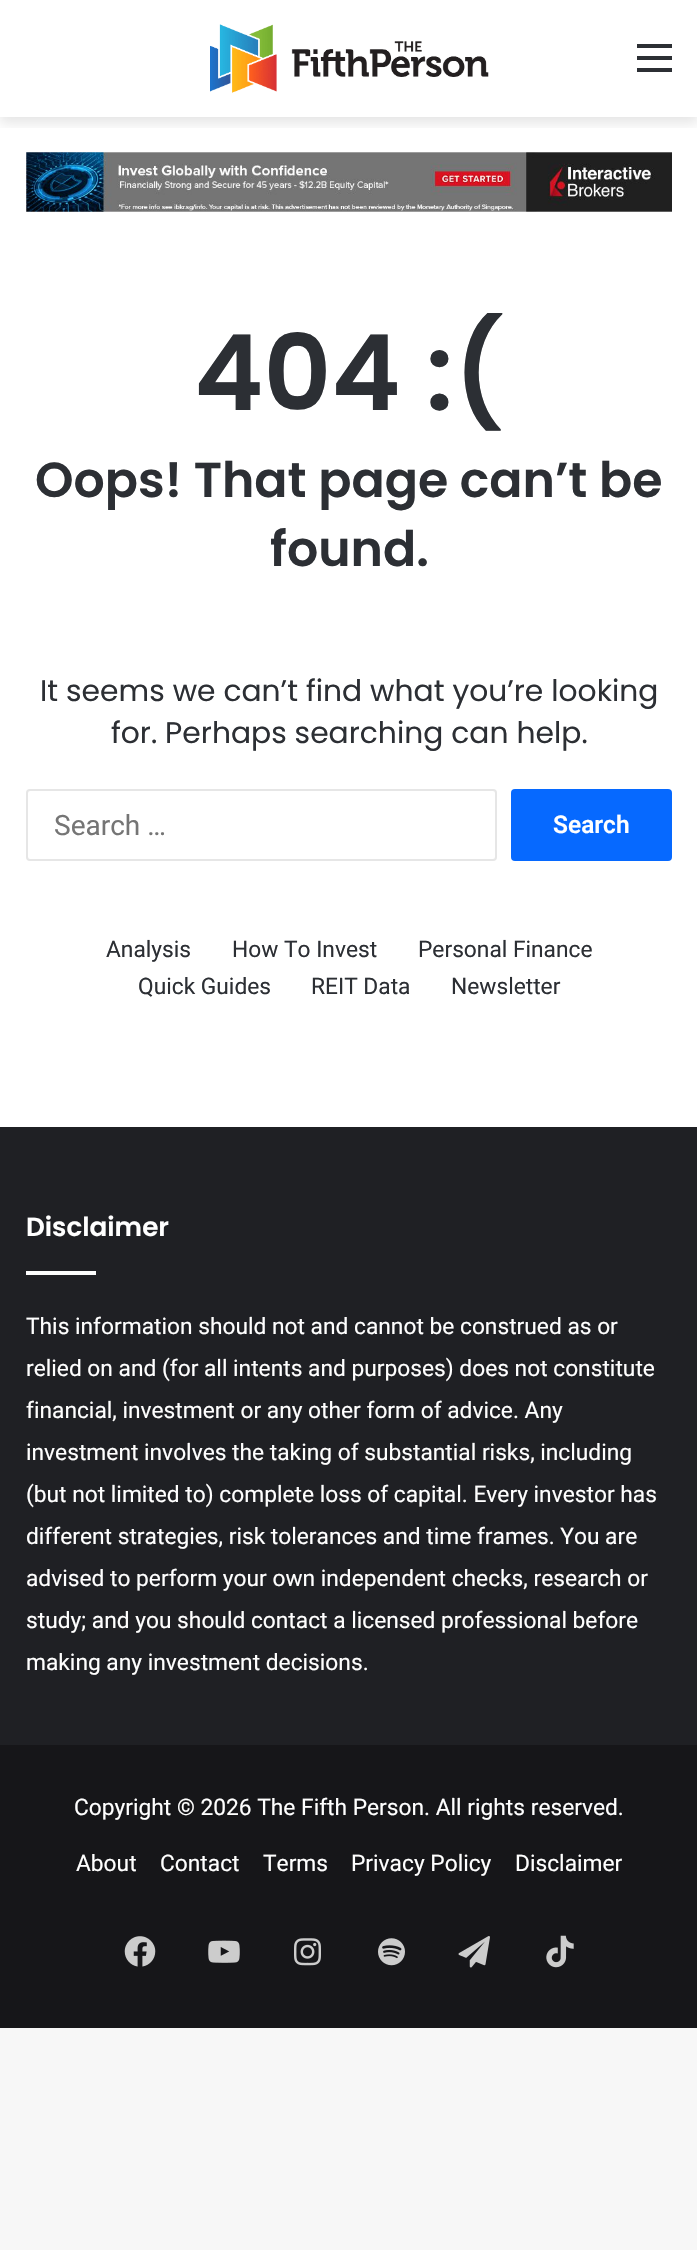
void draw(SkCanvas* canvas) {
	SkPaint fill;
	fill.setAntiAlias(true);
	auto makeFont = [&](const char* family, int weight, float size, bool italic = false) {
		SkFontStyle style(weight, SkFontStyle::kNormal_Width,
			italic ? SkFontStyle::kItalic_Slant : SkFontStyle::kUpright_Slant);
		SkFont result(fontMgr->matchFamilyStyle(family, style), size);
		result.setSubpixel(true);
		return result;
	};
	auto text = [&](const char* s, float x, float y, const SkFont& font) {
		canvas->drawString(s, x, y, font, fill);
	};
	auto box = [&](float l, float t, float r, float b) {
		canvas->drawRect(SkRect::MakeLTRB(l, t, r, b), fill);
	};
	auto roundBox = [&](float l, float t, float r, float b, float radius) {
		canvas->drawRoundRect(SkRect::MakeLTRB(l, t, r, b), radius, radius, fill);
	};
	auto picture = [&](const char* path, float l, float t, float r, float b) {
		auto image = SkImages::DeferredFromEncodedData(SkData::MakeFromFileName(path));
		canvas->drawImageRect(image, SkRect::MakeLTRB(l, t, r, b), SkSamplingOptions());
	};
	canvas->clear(0xFFF7F7F7);
	fill.setColor(0xFFFFFFFF);
	box(0, 0, 697, 1127);
	canvas->save();
	canvas->clipRect(SkRect::MakeLTRB(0, 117, 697, 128));
	fill.setColor(0x1A000000);
	fill.setMaskFilter(SkMaskFilter::MakeBlur(kNormal_SkBlurStyle, 6));
	canvas->drawRect(SkRect::MakeLTRB(0, 5, 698, 123), fill);
	fill.setMaskFilter(nullptr);
	canvas->restore();
	picture("image0.png", 210, 24, 489, 93);
	fill.setColor(0xFF2C2F34);
	box(637, 56, 672, 60);
	box(637, 44, 672, 48);
	box(637, 68, 672, 72);
	picture("image1.png", 26, 152, 672, 212);
	fill.setStyle(SkPaint::kStroke_Style);
	fill.setStrokeWidth(2);
	fill.setColor(0xFFE6E6E6);
	canvas->drawRoundRect(SkRect::MakeLTRB(27, 790, 496, 860), 3, 3, fill);
	fill.setStyle(SkPaint::kFill_Style);
	fill.setColor(0xFF0669FF);
	roundBox(511, 789, 672, 861, 4);
	fill.setColor(0xFF1F2024);
	box(0, 1127, 697, 1745);
	fill.setColor(0xFFFDFDFD);
	box(26, 1271, 96, 1275);
	fill.setColor(0xFF161619);
	box(0, 1745, 697, 2028);
	picture("image2.png", 124, 1936, 156, 1967);
	picture("image3.png", 208, 1940, 240, 1963);
	picture("image4.png", 294, 1938, 321, 1966);
	picture("image5.png", 378, 1938, 405, 1966);
	picture("image6.png", 458, 1936, 490, 1968);
	picture("image7.png", 546, 1935, 574, 1968);
	auto font1 = makeFont("Poppins", 600, 105);
	fill.setColor(0xFF2C2F34);
	text("404 :(", 194, 410, font1);
	auto font2 = makeFont("Poppins", 600, 49);
	text("Oops! That page can’t be", 35, 497, font2);
	text("found.", 270, 566, font2);
	auto font3 = makeFont("Poppins", 400, 29.75f);
	text("It seems we can’t find what you’re looking", 40, 701, font3);
	text("for. Perhaps searching can help.", 111, 743, font3);
	auto font4 = makeFont("Roboto", 400, 28);
	fill.setColor(0xFF757575);
	text("Search …", 54, 835, font4);
	auto font5 = makeFont("Roboto", 600, 24.5f);
	fill.setColor(0xFFFFFFFF);
	text("Search", 553, 833, font5);
	auto font6 = makeFont("Roboto", 400, 22.75f);
	fill.setColor(0xFF2C2F34);
	text("Analysis", 106, 957, font6);
	text("How To Invest", 232, 957, font6);
	text("Personal Finance", 418, 957, font6);
	text("Quick Guides", 138, 994, font6);
	text("REIT Data", 311, 994, font6);
	text("Newsletter", 451, 994, font6);
	auto font7 = makeFont("Poppins", 600, 26.25f);
	fill.setColor(0xFFFFFFFF);
	text("Disclaimer", 26, 1236, font7);
	text("This information should not and cannot be construed as or", 26, 1334, font6);
	text("relied on and (for all intents and purposes) does not constitute", 26, 1376, font6);
	text("financial, investment or any other form of advice. Any", 26, 1418, font6);
	text("investment involves the taking of substantial risks, including", 26, 1460, font6);
	text("(but not limited to) complete loss of capital. Every investor has", 26, 1502, font6);
	text("different strategies, risk tolerances and time frames. You are", 26, 1544, font6);
	text("advised to perform your own independent checks, research or", 26, 1586, font6);
	text("study; and you should contact a licensed professional before", 26, 1628, font6);
	text("making any investment decisions.", 26, 1670, font6);
	text("Copyright © 2026 The Fifth Person. All rights reserved.", 74, 1815, font6);
	text("About", 76, 1871, font6);
	text("Contact", 160, 1871, font6);
	text("Terms", 263, 1871, font6);
	text("Privacy Policy", 351, 1871, font6);
	text("Disclaimer", 515, 1871, font6);
}
